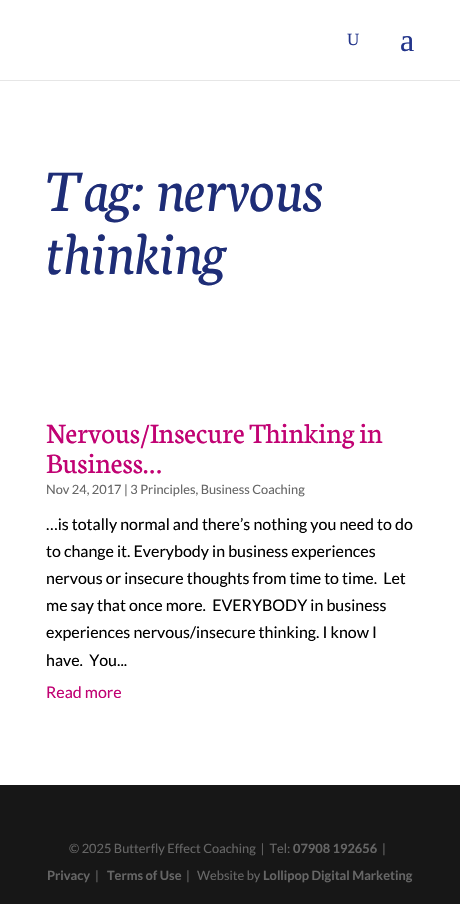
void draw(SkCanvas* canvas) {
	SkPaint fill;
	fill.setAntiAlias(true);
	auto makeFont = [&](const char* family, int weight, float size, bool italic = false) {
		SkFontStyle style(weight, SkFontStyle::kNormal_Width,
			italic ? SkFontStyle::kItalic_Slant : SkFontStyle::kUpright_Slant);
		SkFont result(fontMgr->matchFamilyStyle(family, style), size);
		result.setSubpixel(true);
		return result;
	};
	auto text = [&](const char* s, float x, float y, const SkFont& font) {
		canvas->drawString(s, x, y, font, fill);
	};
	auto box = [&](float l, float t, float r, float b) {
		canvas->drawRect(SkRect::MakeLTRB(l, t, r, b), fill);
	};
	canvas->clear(0xFFFFFFFF);
	fill.setColor(0xFFE6E6E6);
	box(0, 80, 460, 81);
	fill.setColor(0xFF171717);
	box(0, 785, 460, 904);
	auto font1 = makeFont("Liberation Serif", 400, 17);
	fill.setColor(0xFF23358B);
	text("U", 347, 45, font1);
	auto font2 = makeFont("Liberation Serif", 400, 32);
	text("a", 400, 51, font2);
	auto font3 = makeFont("Neuton", 400, 63, true);
	fill.setColor(0xFF1E2D77);
	text("Tag: nervous", 46, 211, font3);
	text("thinking", 46, 274, font3);
	auto font4 = makeFont("Neuton", 400, 30);
	fill.setColor(0xFFC10273);
	text("Nervous/Insecure Thinking in", 46, 443, font4);
	text("Business…", 46, 473, font4);
	auto font5 = makeFont("Lato", 400, 12.8f);
	fill.setColor(0xFF666666);
	text("Nov 24, 2017 | 3 Principles, Business Coaching", 46, 494, font5);
	auto font6 = makeFont("Lato", 400, 16);
	fill.setColor(0xFF000000);
	text("…is totally normal and there’s nothing you need to do", 46, 530, font6);
	text("to change it. Everybody in business experiences", 46, 557, font6);
	text("nervous or insecure thoughts from time to time.  Let", 46, 584, font6);
	text("me say that once more.  EVERYBODY in business", 46, 611, font6);
	text("experiences nervous/insecure thinking. I know I", 46, 638, font6);
	text("have.  You...", 46, 666, font6);
	fill.setColor(0xFFC10273);
	text("Read more", 46, 698, font6);
	fill.setColor(0xFF666666);
	text("© 2025 Butterfly Effect Coaching  |  Tel:", 69, 853, font5);
	auto font7 = makeFont("Lato", 700, 12.8f);
	text("07908 192656", 293, 853, font7);
	text("|", 382, 853, font5);
	text("Privacy", 47, 880, font7);
	text("|", 95, 880, font5);
	text("Terms of Use", 107, 880, font7);
	text("|", 186, 880, font5);
	text("Website by", 197, 880, font5);
	text("Lollipop Digital Marketing", 263, 880, font7);
}
